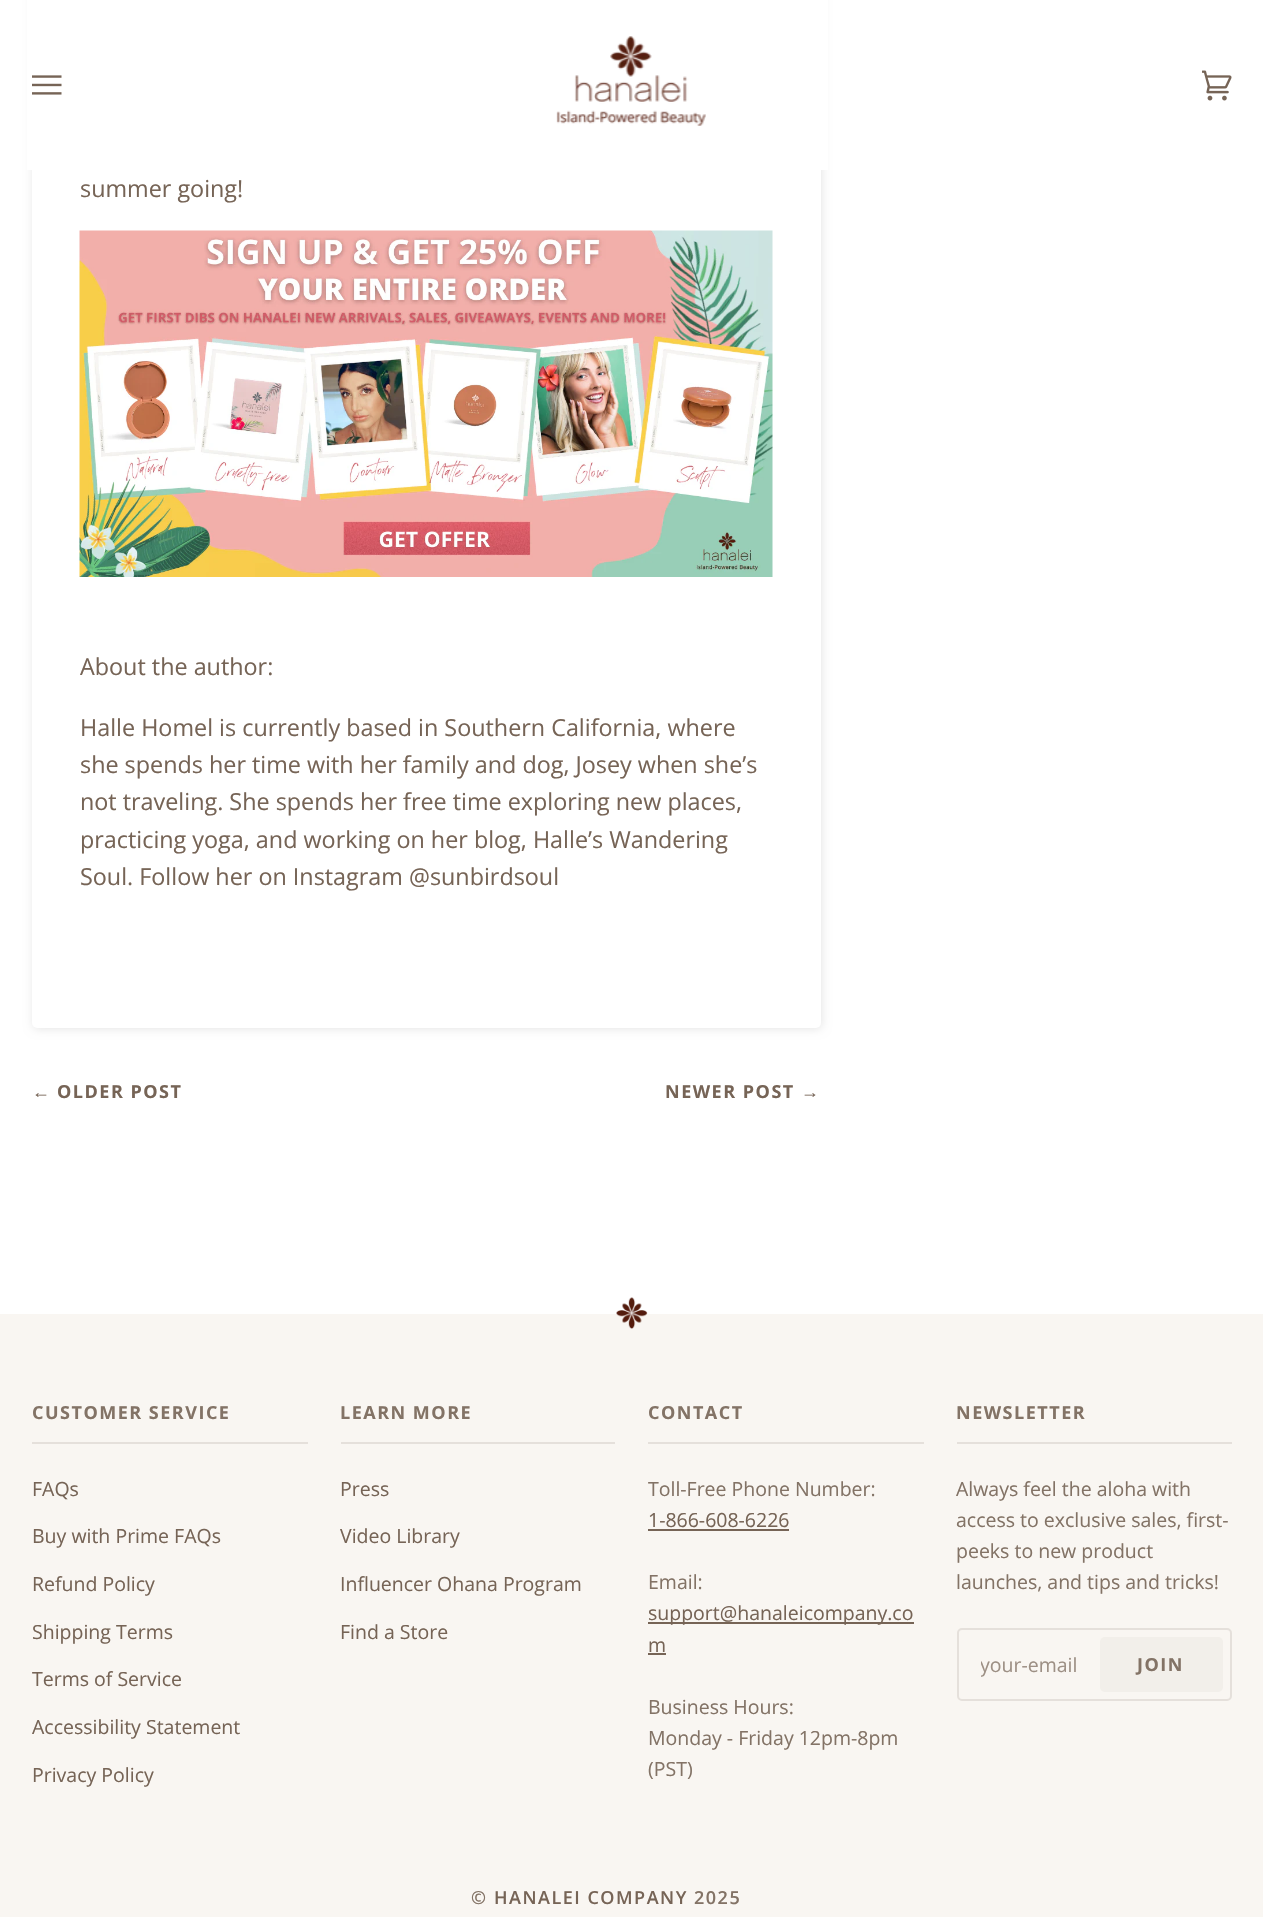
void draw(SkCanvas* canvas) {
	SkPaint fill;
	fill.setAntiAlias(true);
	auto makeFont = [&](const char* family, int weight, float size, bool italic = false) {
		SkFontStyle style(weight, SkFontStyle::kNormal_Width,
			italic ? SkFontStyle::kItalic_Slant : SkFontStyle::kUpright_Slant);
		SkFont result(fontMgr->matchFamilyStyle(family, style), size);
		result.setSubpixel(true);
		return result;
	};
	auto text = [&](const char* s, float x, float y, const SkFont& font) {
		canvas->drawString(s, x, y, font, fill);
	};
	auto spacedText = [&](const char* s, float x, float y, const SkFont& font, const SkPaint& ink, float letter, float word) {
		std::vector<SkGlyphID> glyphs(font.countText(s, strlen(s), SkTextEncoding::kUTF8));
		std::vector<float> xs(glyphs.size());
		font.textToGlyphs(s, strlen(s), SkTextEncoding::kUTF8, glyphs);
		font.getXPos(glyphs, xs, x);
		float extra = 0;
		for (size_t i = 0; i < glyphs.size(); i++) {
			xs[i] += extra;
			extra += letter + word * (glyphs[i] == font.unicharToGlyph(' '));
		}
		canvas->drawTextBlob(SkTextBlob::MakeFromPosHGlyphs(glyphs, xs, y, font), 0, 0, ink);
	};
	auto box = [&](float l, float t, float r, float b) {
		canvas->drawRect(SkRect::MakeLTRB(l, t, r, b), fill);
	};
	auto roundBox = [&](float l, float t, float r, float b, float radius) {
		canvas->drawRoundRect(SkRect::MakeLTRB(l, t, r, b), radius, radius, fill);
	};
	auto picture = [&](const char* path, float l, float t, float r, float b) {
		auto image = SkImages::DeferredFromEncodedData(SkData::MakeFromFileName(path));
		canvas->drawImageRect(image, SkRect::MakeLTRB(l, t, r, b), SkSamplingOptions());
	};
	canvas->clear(0xFFFFFFFF);
	fill.setColor(0x1A000000);
	fill.setMaskFilter(SkMaskFilter::MakeBlur(kNormal_SkBlurStyle, 5));
	canvas->drawRoundRect(SkRect::MakeLTRB(33, -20, 822, 1029), 5, 5, fill);
	fill.setMaskFilter(nullptr);
	fill.setColor(0xFFFFFFFF);
	roundBox(32, -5, 821, 1028, 5);
	box(27, 0, 828, 170);
	picture("image0.png", 32, 75, 62, 95);
	picture("image1.png", 556, 36, 706, 126);
	picture("image2.png", 1202, 70, 1232, 101);
	picture("image3.png", 79, 230, 773, 577);
	fill.setColor(0xFFF9F6F2);
	box(0, 1314, 1263, 1917);
	picture("image4.png", 616, 1297, 648, 1329);
	fill.setColor(0xFFE5E0DB);
	box(32, 1442, 308, 1444);
	box(341, 1442, 615, 1444);
	box(648, 1442, 924, 1444);
	fill.setColor(0xFF766456);
	box(648, 1529, 789, 1531);
	box(648, 1622, 914, 1624);
	box(648, 1653, 666, 1655);
	fill.setColor(0xFFE5E0DB);
	box(957, 1442, 1232, 1444);
	fill.setStyle(SkPaint::kStroke_Style);
	fill.setStrokeWidth(2);
	canvas->drawRoundRect(SkRect::MakeLTRB(958, 1629, 1231, 1700), 4, 4, fill);
	fill.setStyle(SkPaint::kFill_Style);
	fill.setColor(0xFFF2EFEA);
	roundBox(1100, 1637, 1223, 1692, 5);
	auto font1 = makeFont("Open Sans", 400, 23.35f);
	fill.setColor(0xFF766456);
	text("summer going!", 80, 197, font1);
	text("About the author:", 80, 675, font1);
	text("Halle Homel is currently based in Southern California, where", 80, 736, font1);
	text("she spends her time with her family and dog, Josey when she’s", 80, 773, font1);
	text("not traveling. She spends her free time exploring new places,", 80, 810, font1);
	text("practicing yoga, and working on her blog, Halle’s Wandering", 80, 848, font1);
	text("Soul. Follow her on Instagram @sunbirdsoul", 80, 885, font1);
	auto font2 = makeFont("Liberation Serif", 700, 18);
	spacedText("←", 32, 1098, font2, fill, 1.5f, 0);
	auto font3 = makeFont("Open Sans", 700, 18);
	spacedText("OLDER POST", 57, 1098, font3, fill, 1.5f, 0);
	spacedText("NEWER POST", 665, 1098, font3, fill, 1.5f, 0);
	spacedText("→", 801, 1098, font2, fill, 1.5f, 0);
	fill.setColor(0xFF837366);
	spacedText("CUSTOMER SERVICE", 32, 1419, font3, fill, 1.5f, 0);
	auto font4 = makeFont("Open Sans", 400, 19.5f);
	fill.setColor(0xFF766456);
	text("FAQs", 32, 1496, font4);
	text("Buy with Prime FAQs", 32, 1543, font4);
	text("Refund Policy", 32, 1591, font4);
	text("Shipping Terms", 32, 1639, font4);
	text("Terms of Service", 32, 1686, font4);
	text("Accessibility Statement", 32, 1734, font4);
	text("Privacy Policy", 32, 1782, font4);
	fill.setColor(0xFF837366);
	spacedText("LEARN MORE", 340, 1419, font3, fill, 1.5f, 0);
	fill.setColor(0xFF766456);
	text("Press", 340, 1496, font4);
	text("Video Library", 340, 1543, font4);
	text("Influencer Ohana Program", 340, 1591, font4);
	text("Find a Store", 340, 1639, font4);
	fill.setColor(0xFF837366);
	spacedText("CONTACT", 648, 1419, font3, fill, 1.5f, 0);
	text("Toll-Free Phone Number:", 648, 1496, font4);
	fill.setColor(0xFF766456);
	text("1-866-608-6226", 648, 1527, font4);
	fill.setColor(0xFF837366);
	text("Email:", 648, 1589, font4);
	fill.setColor(0xFF766456);
	text("support@hanaleicompany.co", 648, 1620, font4);
	text("m", 648, 1652, font4);
	fill.setColor(0xFF837366);
	text("Business Hours:", 648, 1714, font4);
	text("Monday - Friday 12pm-8pm", 648, 1745, font4);
	text("(PST)", 648, 1776, font4);
	spacedText("NEWSLETTER", 956, 1419, font3, fill, 1.5f, 0);
	text("Always feel the aloha with", 956, 1496, font4);
	text("access to exclusive sales, first-", 956, 1527, font4);
	text("peeks to new product", 956, 1558, font4);
	text("launches, and tips and tricks!", 956, 1589, font4);
	canvas->save();
	canvas->clipRect(SkRect::MakeLTRB(981, 1652, 1085, 1679));
	fill.setColor(0xFF9D9085);
	text("your-email", 980, 1672, font4);
	canvas->restore();
	fill.setColor(0xFF837366);
	spacedText("JOIN", 1137, 1671, font3, fill, 1.5f, 0);
	auto font5 = makeFont("Open Sans", 600, 18);
	spacedText("©", 471, 1904, font5, fill, 1.5f, 0);
	fill.setColor(0xFF766456);
	spacedText("HANALEI COMPANY", 494, 1904, font5, fill, 1.5f, 0);
	fill.setColor(0xFF837366);
	spacedText("2025", 694, 1904, font5, fill, 1.5f, 0);
}
